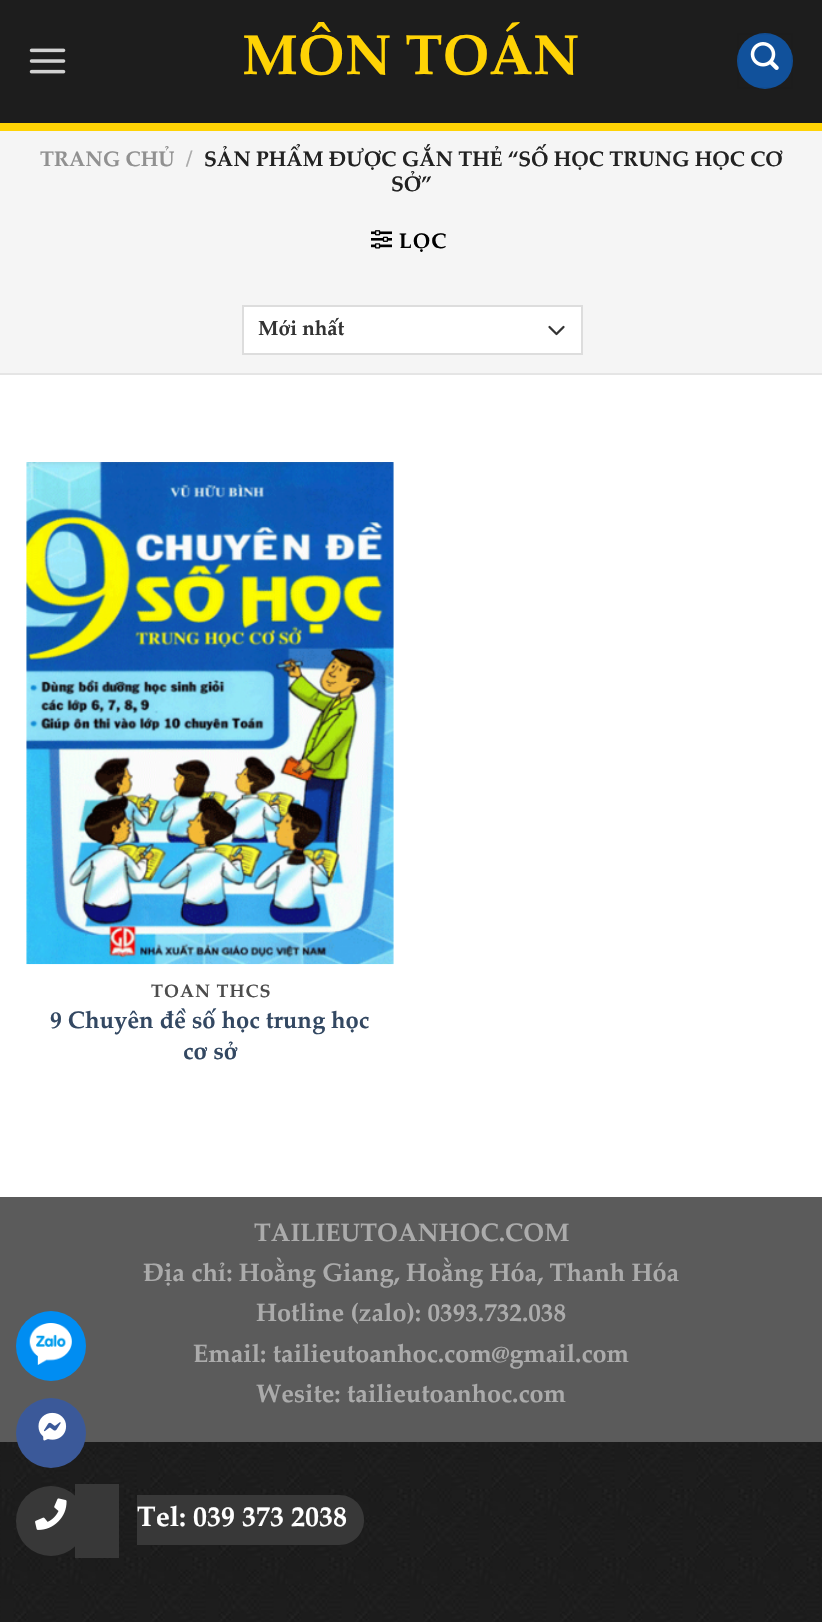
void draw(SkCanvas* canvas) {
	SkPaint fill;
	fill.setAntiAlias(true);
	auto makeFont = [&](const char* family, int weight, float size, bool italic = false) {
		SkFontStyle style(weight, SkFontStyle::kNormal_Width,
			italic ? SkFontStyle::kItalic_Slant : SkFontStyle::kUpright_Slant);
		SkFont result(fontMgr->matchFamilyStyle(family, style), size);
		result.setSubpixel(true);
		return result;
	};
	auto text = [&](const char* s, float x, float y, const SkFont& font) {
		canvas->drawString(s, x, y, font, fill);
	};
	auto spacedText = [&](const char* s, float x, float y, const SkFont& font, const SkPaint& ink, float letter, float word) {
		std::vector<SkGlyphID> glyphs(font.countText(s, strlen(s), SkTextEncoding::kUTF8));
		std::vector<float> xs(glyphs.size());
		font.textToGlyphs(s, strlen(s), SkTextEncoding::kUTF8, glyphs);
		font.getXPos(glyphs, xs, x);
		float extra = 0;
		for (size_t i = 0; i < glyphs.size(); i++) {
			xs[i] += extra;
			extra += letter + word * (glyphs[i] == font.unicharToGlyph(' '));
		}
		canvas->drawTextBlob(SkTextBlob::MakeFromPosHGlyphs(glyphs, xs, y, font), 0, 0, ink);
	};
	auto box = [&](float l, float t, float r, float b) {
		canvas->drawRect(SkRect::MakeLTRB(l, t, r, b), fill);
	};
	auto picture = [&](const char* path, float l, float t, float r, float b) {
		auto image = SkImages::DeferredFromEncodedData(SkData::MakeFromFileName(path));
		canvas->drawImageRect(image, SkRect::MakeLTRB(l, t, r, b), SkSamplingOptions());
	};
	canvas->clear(0xFFFFFFFF);
	picture("image0.png", 0, 1442, 822, 1622);
	fill.setColor(0xFFFFD305);
	box(0, 123, 822, 131);
	fill.setColor(0xFF1D1D1D);
	box(0, 0, 822, 123);
	picture("image1.png", 29, 48, 66, 74);
	fill.setColor(0xFF11519B);
	canvas->drawCircle(765, 61, 28, fill);
	fill.setStyle(SkPaint::kStroke_Style);
	fill.setStrokeWidth(2);
	fill.setColor(0x0D000000);
	canvas->drawRect(SkRect::MakeLTRB(738, 34, 792, 88), fill);
	picture("image2.png", 750, 42, 779, 70);
	fill.setStyle(SkPaint::kFill_Style);
	fill.setColor(0xFFF5F5F5);
	box(0, 131, 822, 373);
	fill.setColor(0xFFE5E5E5);
	box(0, 373, 822, 375);
	picture("image3.png", 371, 230, 392, 249);
	fill.setColor(0xFFFFFFFF);
	box(244, 307, 581, 353);
	fill.setStyle(SkPaint::kStroke_Style);
	fill.setStrokeWidth(2.3f);
	fill.setStrokeCap(SkPaint::kRound_Cap);
	fill.setStrokeJoin(SkPaint::kRound_Join);
	fill.setColor(0xFF333333);
	canvas->drawPath(SkPathBuilder().moveTo(549.5f, 327).lineTo(556.5f, 334).lineTo(563.5f, 327).detach(), fill);
	fill.setStrokeWidth(2);
	fill.setStrokeCap(SkPaint::kButt_Cap);
	fill.setStrokeJoin(SkPaint::kMiter_Join);
	fill.setColor(0xFFDDDDDD);
	canvas->drawRect(SkRect::MakeLTRB(243, 306, 582, 354), fill);
	picture("image4.png", 26, 462, 394, 965);
	fill.setStyle(SkPaint::kFill_Style);
	fill.setColor(0xFF5B5B5B);
	box(0, 1197, 822, 1442);
	fill.setColor(0xFF008DF2);
	canvas->drawCircle(51, 1346, 35, fill);
	picture("image5.png", 29, 1323, 72, 1365);
	fill.setColor(0xFF3B5999);
	canvas->drawCircle(51, 1433, 35, fill);
	picture("image6.png", 38, 1412, 67, 1441);
	fill.setColor(0xFF383838);
	canvas->drawCircle(51, 1521, 35, fill);
	picture("image7.png", 35, 1498, 67, 1530);
	box(75, 1484, 119, 1558);
	canvas->drawPath(SkPathBuilder().moveTo(137, 1495).lineTo(339, 1495).cubicTo(353, 1495, 364, 1506, 364, 1520).cubicTo(364, 1534, 353, 1545, 339, 1545).lineTo(137, 1545).close().detach(), fill);
	auto font1 = makeFont("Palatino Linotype", 700, 56);
	fill.setColor(0xFFFFD305);
	text("MÔN TOÁN", 242, 74, font1);
	auto font2 = makeFont("Palatino Linotype", 700, 21);
	fill.setColor(0xFF919191);
	text("TRANG CHỦ", 40, 166, font2);
	fill.setColor(0xFFABABAB);
	text("/", 186, 166, font2);
	fill.setColor(0xFF222222);
	text("SẢN PHẨM ĐƯỢC GẮN THẺ “SỐ HỌC TRUNG HỌC CƠ", 204, 166, font2);
	text("SỞ”", 391, 191, font2);
	fill.setColor(0xFF000000);
	spacedText("LỌC", 399, 248, font2, fill, 1, 0);
	auto font3 = makeFont("Palatino Linotype", 700, 20.5f);
	fill.setColor(0xFF333333);
	text("Mới nhất", 258, 335, font3);
	canvas->save();
	canvas->clipRect(SkRect::MakeLTRB(44, 984, 376, 1005));
	auto font4 = makeFont("Palatino Linotype", 700, 18);
	fill.setColor(0xFF4D4D4D);
	spacedText("TOÁN THCS", 151, 997, font4, fill, 1, 0);
	canvas->restore();
	auto font5 = makeFont("Palatino Linotype", 700, 23.75f);
	fill.setColor(0xFF334862);
	text("9 Chuyên đề số học trung học", 50, 1028, font5);
	text("cơ sở", 183, 1059, font5);
	auto font6 = makeFont("Palatino Linotype", 700, 25.2f);
	fill.setColor(0xFFABABAB);
	text("TAILIEUTOANHOC.COM", 254, 1241, font6);
	text("Địa chỉ: Hoằng Giang, Hoằng Hóa, Thanh Hóa", 143, 1281, font6);
	text("Hotline (zalo): 0393.732.038", 256, 1321, font6);
	text("Email: tailieutoanhoc.com@gmail.com", 193, 1362, font6);
	text("Wesite: tailieutoanhoc.com", 256, 1402, font6);
	auto font7 = makeFont("Palatino Linotype", 700, 28);
	fill.setColor(0xFFFFFFFF);
	text("Tel: 039 373 2038", 137, 1526, font7);
}
